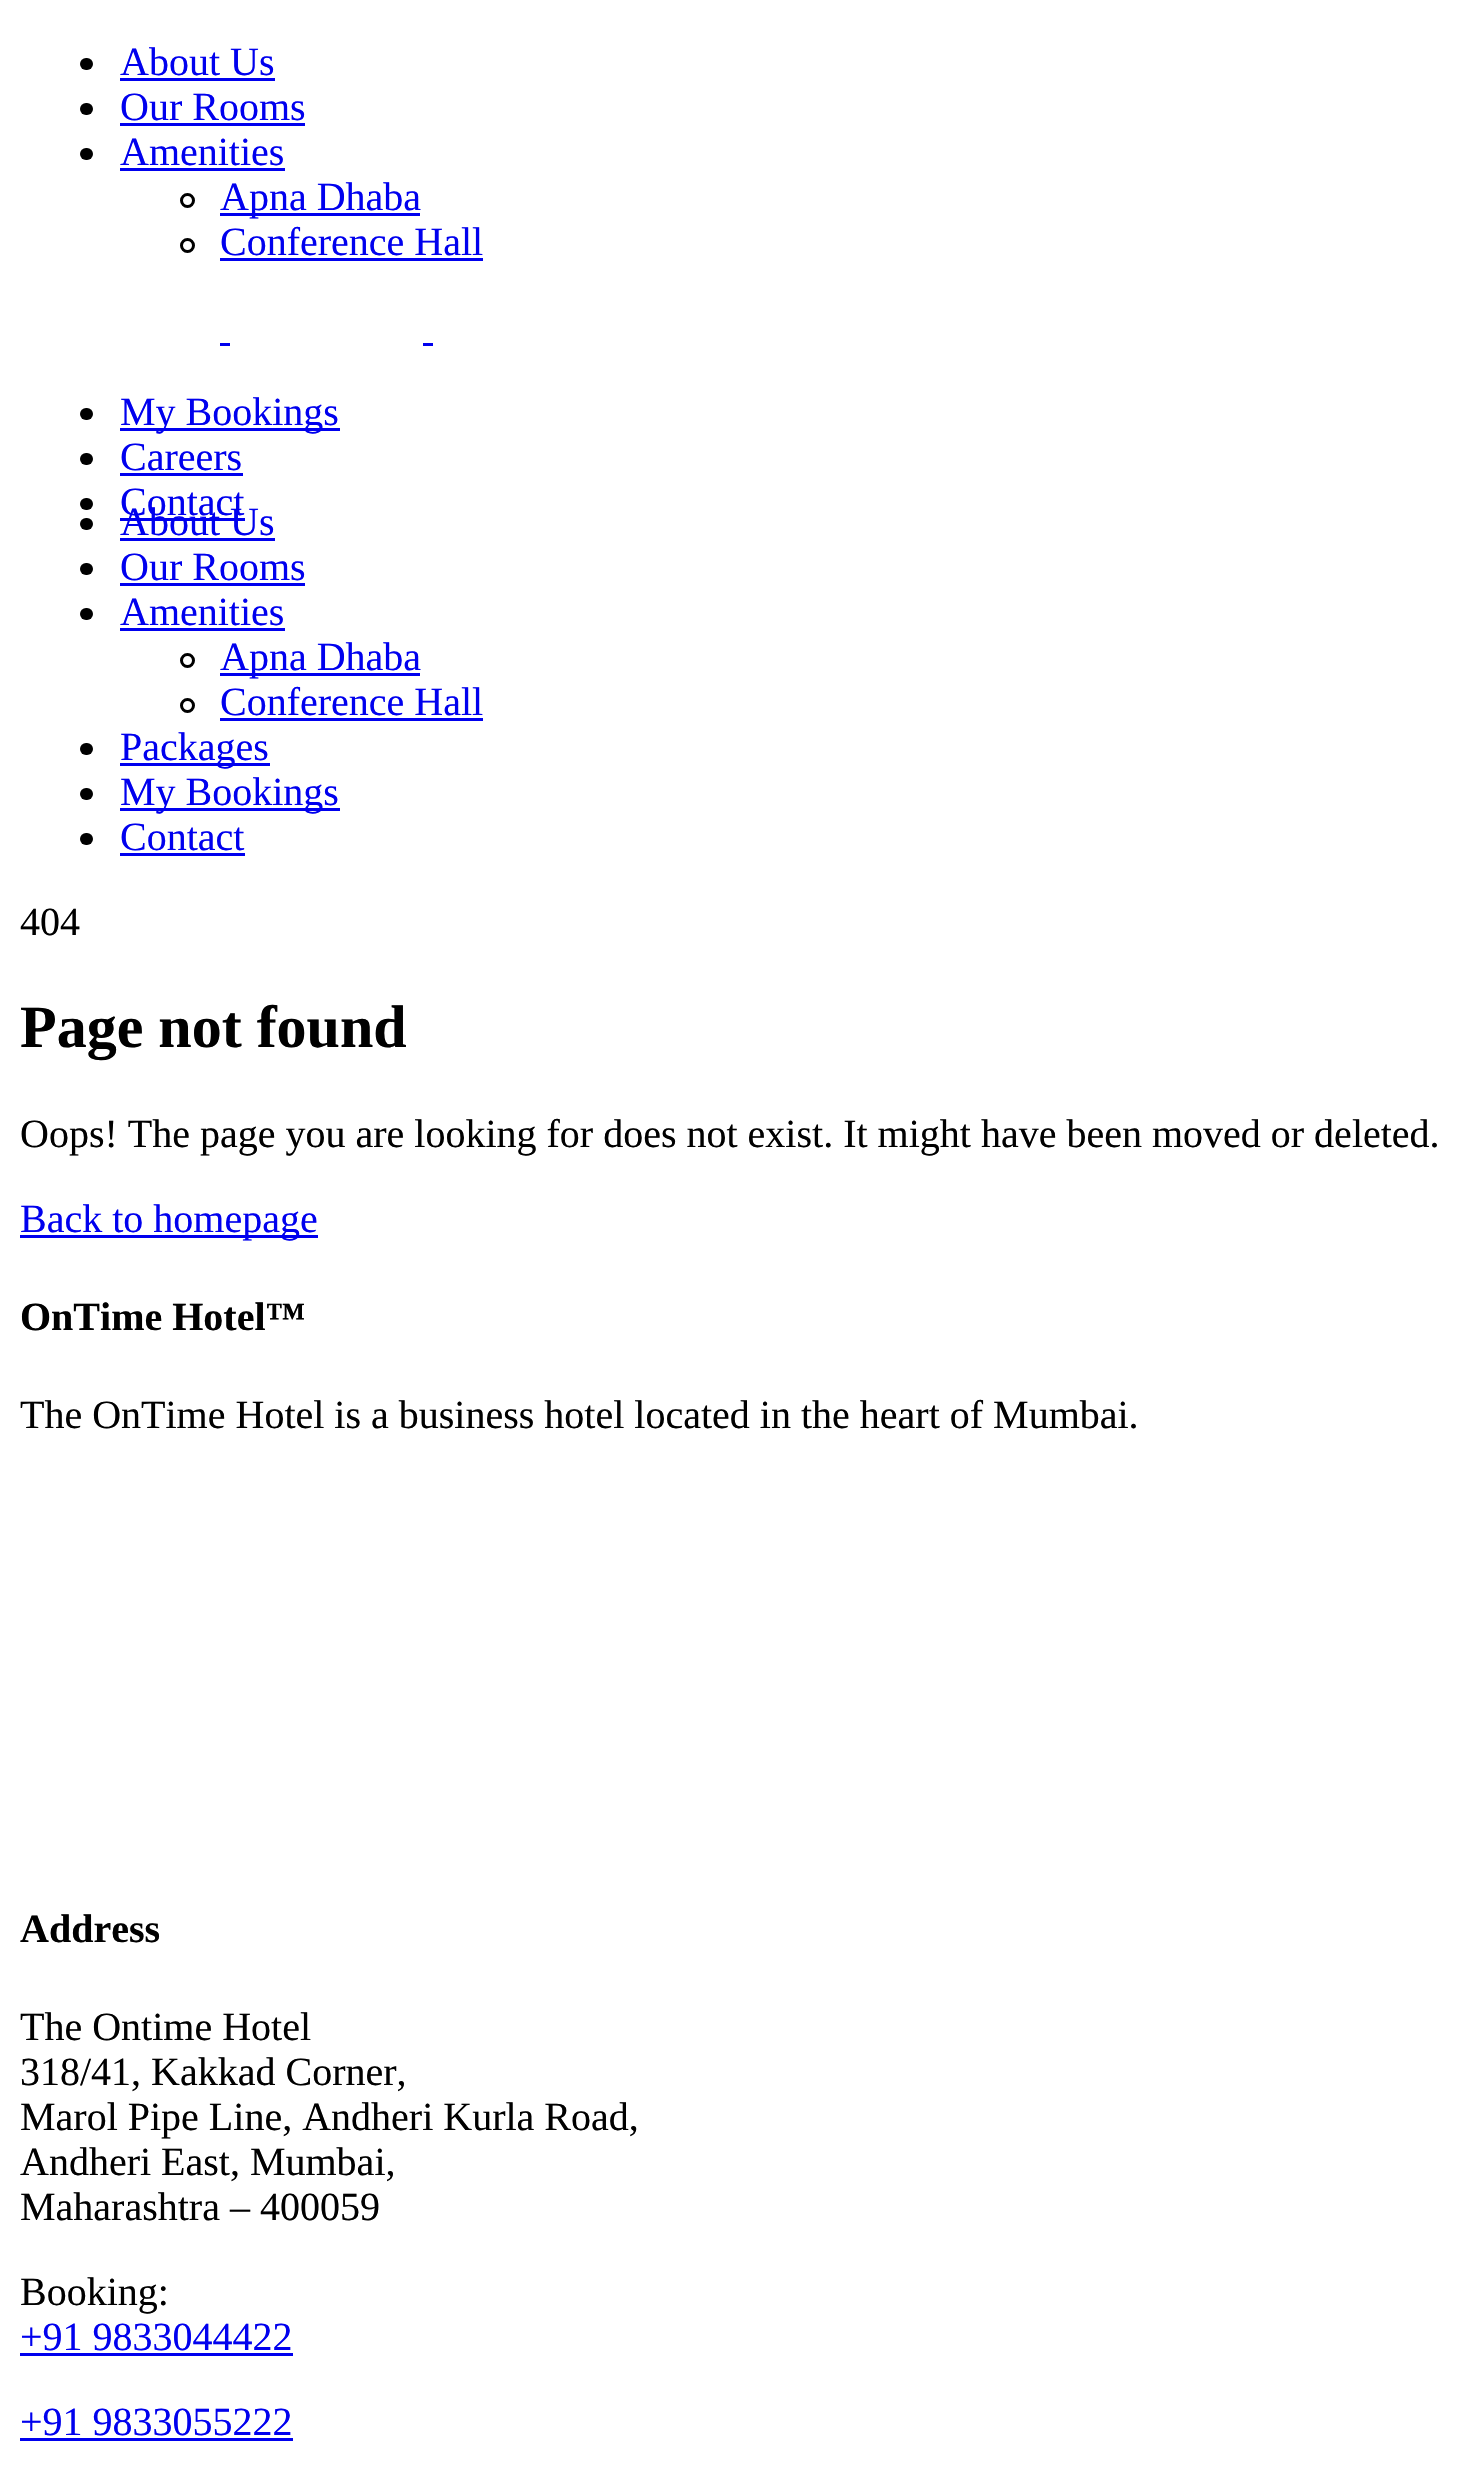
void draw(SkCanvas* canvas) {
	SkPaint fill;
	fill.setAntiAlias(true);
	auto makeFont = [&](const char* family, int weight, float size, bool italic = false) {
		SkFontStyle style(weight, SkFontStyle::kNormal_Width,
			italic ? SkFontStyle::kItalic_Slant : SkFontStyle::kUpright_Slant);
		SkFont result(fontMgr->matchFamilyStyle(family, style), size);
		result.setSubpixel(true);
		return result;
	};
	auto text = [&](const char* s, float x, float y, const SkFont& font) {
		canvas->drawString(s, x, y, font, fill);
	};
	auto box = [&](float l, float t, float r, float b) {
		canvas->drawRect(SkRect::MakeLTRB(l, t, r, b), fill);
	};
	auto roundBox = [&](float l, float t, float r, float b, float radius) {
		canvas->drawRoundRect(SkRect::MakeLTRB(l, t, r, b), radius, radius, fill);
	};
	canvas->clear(0xFFFFFFFF);
	fill.setColor(0xFF000000);
	roundBox(80, 58, 93, 70, 6);
	fill.setColor(0xFF0000EE);
	box(120, 78, 275, 81);
	fill.setColor(0xFF000000);
	roundBox(80, 103, 93, 115, 6);
	fill.setColor(0xFF0000EE);
	box(120, 123, 305, 126);
	fill.setColor(0xFF000000);
	roundBox(80, 148, 93, 160, 6);
	fill.setColor(0xFF0000EE);
	box(120, 168, 285, 171);
	fill.setStyle(SkPaint::kStroke_Style);
	fill.setStrokeWidth(3);
	fill.setColor(0xFF000000);
	canvas->drawCircle(187.5f, 200.5f, 6, fill);
	fill.setStyle(SkPaint::kFill_Style);
	fill.setColor(0xFF0000EE);
	box(220, 213, 420, 216);
	fill.setStyle(SkPaint::kStroke_Style);
	fill.setColor(0xFF000000);
	canvas->drawCircle(187.5f, 245.5f, 6, fill);
	fill.setStyle(SkPaint::kFill_Style);
	fill.setColor(0xFF0000EE);
	box(220, 258, 483, 261);
	box(220, 343, 230, 346);
	box(423, 343, 433, 346);
	fill.setColor(0xFF000000);
	roundBox(80, 408, 93, 420, 6);
	fill.setColor(0xFF0000EE);
	box(120, 428, 340, 431);
	fill.setColor(0xFF000000);
	roundBox(80, 453, 93, 465, 6);
	fill.setColor(0xFF0000EE);
	box(120, 473, 243, 476);
	fill.setColor(0xFF000000);
	roundBox(80, 498, 93, 510, 6);
	fill.setColor(0xFF0000EE);
	box(120, 518, 245, 521);
	fill.setColor(0xFF000000);
	roundBox(80, 518, 93, 530, 6);
	fill.setColor(0xFF0000EE);
	box(120, 538, 275, 541);
	fill.setColor(0xFF000000);
	roundBox(80, 563, 93, 575, 6);
	fill.setColor(0xFF0000EE);
	box(120, 583, 305, 586);
	fill.setColor(0xFF000000);
	roundBox(80, 608, 93, 620, 6);
	fill.setColor(0xFF0000EE);
	box(120, 628, 285, 631);
	fill.setStyle(SkPaint::kStroke_Style);
	fill.setColor(0xFF000000);
	canvas->drawCircle(187.5f, 660.5f, 6, fill);
	fill.setStyle(SkPaint::kFill_Style);
	fill.setColor(0xFF0000EE);
	box(220, 673, 420, 676);
	fill.setStyle(SkPaint::kStroke_Style);
	fill.setColor(0xFF000000);
	canvas->drawCircle(187.5f, 705.5f, 6, fill);
	fill.setStyle(SkPaint::kFill_Style);
	fill.setColor(0xFF0000EE);
	box(220, 718, 483, 721);
	fill.setColor(0xFF000000);
	roundBox(80, 743, 93, 755, 6);
	fill.setColor(0xFF0000EE);
	box(120, 763, 270, 766);
	fill.setColor(0xFF000000);
	roundBox(80, 788, 93, 800, 6);
	fill.setColor(0xFF0000EE);
	box(120, 808, 340, 811);
	fill.setColor(0xFF000000);
	roundBox(80, 833, 93, 845, 6);
	fill.setColor(0xFF0000EE);
	box(120, 853, 245, 856);
	box(20, 1235, 318, 1238);
	box(20, 2353, 293, 2356);
	box(20, 2438, 293, 2441);
	auto font1 = makeFont("Liberation Serif", 400, 40);
	text("About Us", 120, 75, font1);
	text("Our Rooms", 120, 120, font1);
	text("Amenities", 120, 165, font1);
	text("Apna Dhaba", 220, 210, font1);
	text("Conference Hall", 220, 255, font1);
	text("My Bookings", 120, 425, font1);
	text("Careers", 120, 470, font1);
	text("Contact", 120, 515, font1);
	text("About Us", 120, 535, font1);
	text("Our Rooms", 120, 580, font1);
	text("Amenities", 120, 625, font1);
	text("Apna Dhaba", 220, 670, font1);
	text("Conference Hall", 220, 715, font1);
	text("Packages", 120, 760, font1);
	text("My Bookings", 120, 805, font1);
	text("Contact", 120, 850, font1);
	fill.setColor(0xFF000000);
	text("404", 20, 935, font1);
	auto font2 = makeFont("Liberation Serif", 700, 60);
	text("Page not found", 20, 1047, font2);
	text("Oops! The page you are looking for does not exist. It might have been moved or deleted.", 20, 1147, font1);
	fill.setColor(0xFF0000EE);
	text("Back to homepage", 20, 1232, font1);
	auto font3 = makeFont("Liberation Serif", 700, 40);
	fill.setColor(0xFF000000);
	text("OnTime Hotel™", 20, 1330, font3);
	text("The OnTime Hotel is a business hotel located in the heart of Mumbai.", 20, 1428, font1);
	text("Address", 20, 1942, font3);
	text("The Ontime Hotel", 20, 2040, font1);
	text("318/41, Kakkad Corner,", 20, 2085, font1);
	text("Marol Pipe Line, Andheri Kurla Road,", 20, 2130, font1);
	text("Andheri East, Mumbai,", 20, 2175, font1);
	text("Maharashtra – 400059", 20, 2220, font1);
	text("Booking:", 20, 2305, font1);
	fill.setColor(0xFF0000EE);
	text("+91 9833044422", 20, 2350, font1);
	text("+91 9833055222", 20, 2435, font1);
}
